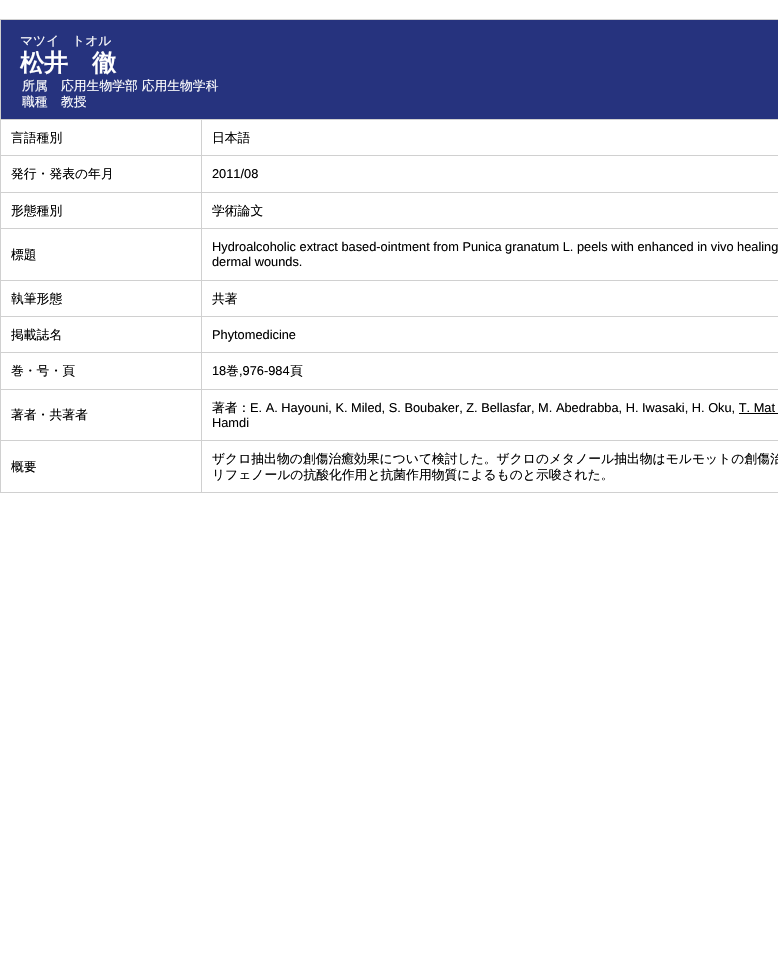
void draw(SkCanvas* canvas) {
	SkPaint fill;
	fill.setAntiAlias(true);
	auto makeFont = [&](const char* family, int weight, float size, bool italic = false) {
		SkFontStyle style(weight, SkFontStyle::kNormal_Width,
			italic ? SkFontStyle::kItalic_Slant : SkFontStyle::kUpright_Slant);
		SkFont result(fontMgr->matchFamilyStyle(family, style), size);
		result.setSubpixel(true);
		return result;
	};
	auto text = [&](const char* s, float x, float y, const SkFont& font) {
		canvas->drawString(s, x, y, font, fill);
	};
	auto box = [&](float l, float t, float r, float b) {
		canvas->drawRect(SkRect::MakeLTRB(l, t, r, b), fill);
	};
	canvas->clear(0xFFFFFFFF);
	fill.setColor(0xFFD0D0D0);
	box(0, 19, 778, 493);
	fill.setColor(0xFF26337E);
	box(1, 20, 778, 119);
	fill.setColor(0xFFFFFFFF);
	box(1, 120, 201, 155);
	box(202, 120, 778, 155);
	box(1, 156, 201, 192);
	box(202, 156, 778, 192);
	box(1, 193, 201, 228);
	box(202, 193, 778, 228);
	box(1, 229, 201, 280);
	box(202, 229, 778, 280);
	box(1, 281, 201, 316);
	box(202, 281, 778, 316);
	box(1, 317, 201, 352);
	box(202, 317, 778, 352);
	box(1, 353, 201, 389);
	box(202, 353, 778, 389);
	box(1, 390, 201, 440);
	box(202, 390, 778, 440);
	fill.setColor(0xFF000000);
	box(739, 413, 778, 414);
	fill.setColor(0xFFFFFFFF);
	box(1, 441, 201, 492);
	box(202, 441, 778, 492);
	auto font1 = makeFont("WenQuanYi Zen Hei", 500, 12.8f);
	text("マツイ　トオル", 20, 45, font1);
	auto font2 = makeFont("WenQuanYi Zen Hei", 700, 24);
	text("松井　徹", 20, 71, font2);
	text("所属", 22, 90, font1);
	text("応用生物学部 応用生物学科", 61, 90, font1);
	text("職種", 22, 106, font1);
	text("教授", 61, 106, font1);
	fill.setColor(0xFF000000);
	text("言語種別", 11, 142, font1);
	text("日本語", 212, 142, font1);
	text("発行・発表の年月", 11, 178, font1);
	auto font3 = makeFont("Liberation Sans", 400, 12.8f);
	text("2011/08", 212, 178, font3);
	text("形態種別", 11, 215, font1);
	text("学術論文", 212, 215, font1);
	text("標題", 11, 259, font1);
	text("Hydroalcoholic extract based-ointment from Punica granatum L. peels with enhanced in vivo healing", 212, 251, font3);
	text("dermal wounds.", 212, 266, font3);
	text("執筆形態", 11, 303, font1);
	text("共著", 212, 303, font1);
	text("掲載誌名", 11, 339, font1);
	text("Phytomedicine", 212, 339, font3);
	text("巻・号・頁", 11, 375, font1);
	text("18", 212, 375, font3);
	text("巻", 226, 375, font1);
	text(",976-984", 239, 375, font3);
	text("頁", 290, 375, font1);
	text("著者・共著者", 11, 419, font1);
	text("著者：", 212, 412, font1);
	text("E. A. Hayouni, K. Miled, S. Boubaker, Z. Bellasfar, M. Abedrabba, H. Iwasaki, H. Oku, T. Mat", 250, 412, font3);
	text("Hamdi", 212, 427, font3);
	text("概要", 11, 471, font1);
	text("ザクロ抽出物の創傷治癒効果について検討した。ザクロのメタノール抽出物はモルモットの創傷治", 212, 463, font1);
	text("リフェノールの抗酸化作用と抗菌作用物質によるものと示唆された。", 212, 479, font1);
}
